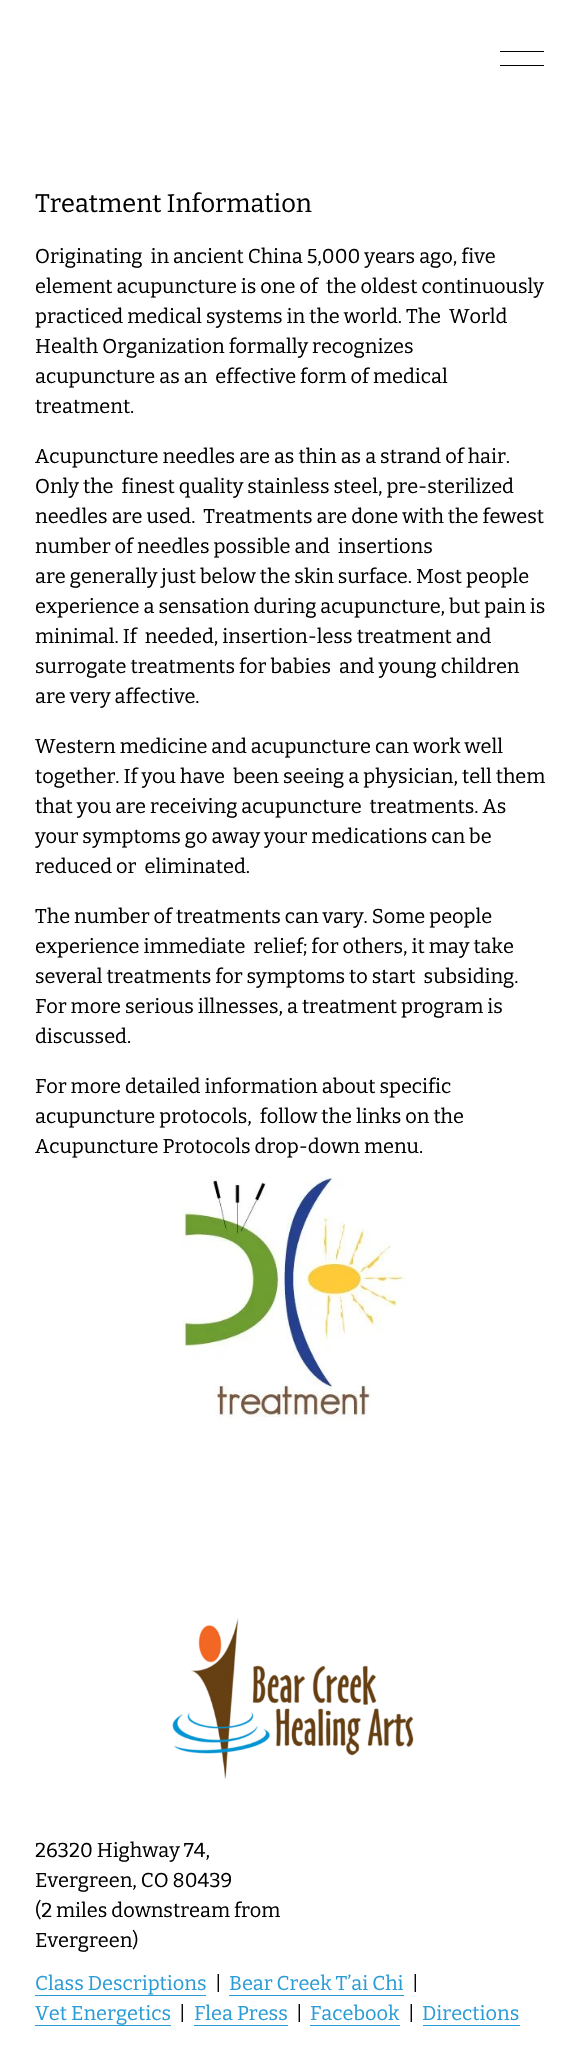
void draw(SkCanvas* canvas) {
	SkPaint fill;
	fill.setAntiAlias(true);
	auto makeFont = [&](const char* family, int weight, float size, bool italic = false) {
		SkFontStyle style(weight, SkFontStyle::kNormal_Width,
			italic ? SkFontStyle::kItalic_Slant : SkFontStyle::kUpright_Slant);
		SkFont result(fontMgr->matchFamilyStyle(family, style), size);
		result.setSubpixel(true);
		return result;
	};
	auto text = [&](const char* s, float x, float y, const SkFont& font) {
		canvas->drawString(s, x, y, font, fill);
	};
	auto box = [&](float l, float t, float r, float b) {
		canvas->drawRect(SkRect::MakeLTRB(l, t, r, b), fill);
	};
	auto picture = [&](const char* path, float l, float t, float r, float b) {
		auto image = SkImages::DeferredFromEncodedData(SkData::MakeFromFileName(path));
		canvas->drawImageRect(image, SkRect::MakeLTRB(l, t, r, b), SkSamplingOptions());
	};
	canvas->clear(0xFFFFFFFF);
	fill.setColor(0xFF000000);
	box(500, 51, 544, 52);
	box(500, 65, 544, 66);
	picture("image0.png", 182, 1176, 407, 1421);
	picture("image1.png", 172, 1618, 414, 1780);
	fill.setColor(0xFF299BD5);
	box(35, 1995, 206, 1996);
	box(229, 1995, 404, 1996);
	box(35, 2025, 171, 2026);
	box(194, 2025, 288, 2026);
	box(310, 2025, 400, 2026);
	box(423, 2025, 520, 2026);
	auto font1 = makeFont("Bitter", 400, 25.4f);
	fill.setColor(0xFF000000);
	text("Treatment Information", 35, 212, font1);
	auto font2 = makeFont("Bitter", 400, 20);
	text("Originating  in ancient China 5,000 years ago, five", 35, 263, font2);
	text("element acupuncture is one of  the oldest continuously", 35, 293, font2);
	text("practiced medical systems in the world. The  World", 35, 323, font2);
	text("Health Organization formally recognizes", 35, 353, font2);
	text("acupuncture as an  effective form of medical", 35, 383, font2);
	text("treatment.", 35, 413, font2);
	text("Acupuncture needles are as thin as a strand of hair.", 35, 463, font2);
	text("Only the  finest quality stainless steel, pre-sterilized", 35, 493, font2);
	text("needles are used.  Treatments are done with the fewest", 35, 523, font2);
	text("number of needles possible and  insertions", 35, 553, font2);
	text("are generally just below the skin surface. Most people", 35, 583, font2);
	text("experience a sensation during acupuncture, but pain is", 35, 613, font2);
	text("minimal. If  needed, insertion-less treatment and", 35, 643, font2);
	text("surrogate treatments for babies  and young children", 35, 673, font2);
	text("are very affective.", 35, 703, font2);
	text("Western medicine and acupuncture can work well", 35, 753, font2);
	text("together. If you have  been seeing a physician, tell them", 35, 783, font2);
	text("that you are receiving acupuncture  treatments. As", 35, 813, font2);
	text("your symptoms go away your medications can be", 35, 843, font2);
	text("reduced or  eliminated.", 35, 873, font2);
	text("The number of treatments can vary. Some people", 35, 923, font2);
	text("experience immediate  relief; for others, it may take", 35, 953, font2);
	text("several treatments for symptoms to start  subsiding.", 35, 983, font2);
	text("For more serious illnesses, a treatment program is", 35, 1013, font2);
	text("discussed.", 35, 1043, font2);
	text("For more detailed information about specific", 35, 1093, font2);
	text("acupuncture protocols,  follow the links on the", 35, 1123, font2);
	text("Acupuncture Protocols drop-down menu.", 35, 1153, font2);
	text("26320 Highway 74,", 35, 1857, font2);
	text("Evergreen, CO 80439", 35, 1887, font2);
	text("(2 miles downstream from", 35, 1917, font2);
	text("Evergreen)", 35, 1947, font2);
	fill.setColor(0xFF299BD5);
	text("Class Descriptions", 35, 1990, font2);
	fill.setColor(0xFF000000);
	text("|", 215, 1990, font2);
	fill.setColor(0xFF299BD5);
	text("Bear Creek T’ai Chi", 229, 1990, font2);
	fill.setColor(0xFF000000);
	text("|", 412, 1990, font2);
	fill.setColor(0xFF299BD5);
	text("Vet Energetics", 35, 2020, font2);
	fill.setColor(0xFF000000);
	text("|", 179, 2020, font2);
	fill.setColor(0xFF299BD5);
	text("Flea Press", 194, 2020, font2);
	fill.setColor(0xFF000000);
	text("|", 296, 2020, font2);
	fill.setColor(0xFF299BD5);
	text("Facebook", 310, 2020, font2);
	fill.setColor(0xFF000000);
	text("|", 408, 2020, font2);
	fill.setColor(0xFF299BD5);
	text("Directions", 422, 2020, font2);
}
